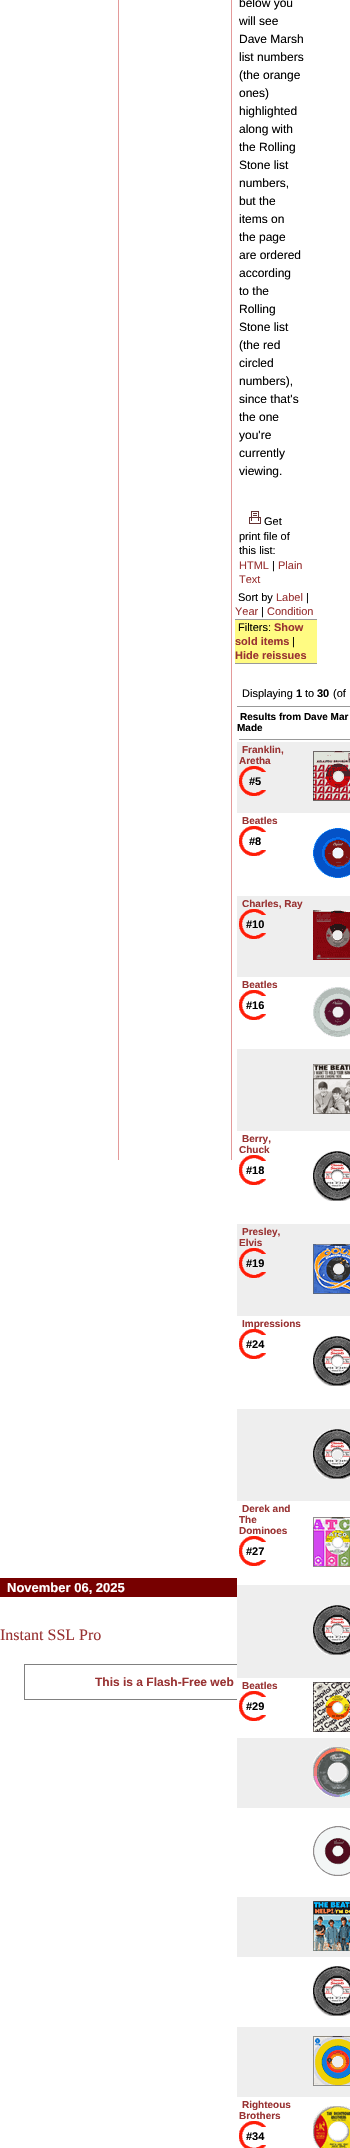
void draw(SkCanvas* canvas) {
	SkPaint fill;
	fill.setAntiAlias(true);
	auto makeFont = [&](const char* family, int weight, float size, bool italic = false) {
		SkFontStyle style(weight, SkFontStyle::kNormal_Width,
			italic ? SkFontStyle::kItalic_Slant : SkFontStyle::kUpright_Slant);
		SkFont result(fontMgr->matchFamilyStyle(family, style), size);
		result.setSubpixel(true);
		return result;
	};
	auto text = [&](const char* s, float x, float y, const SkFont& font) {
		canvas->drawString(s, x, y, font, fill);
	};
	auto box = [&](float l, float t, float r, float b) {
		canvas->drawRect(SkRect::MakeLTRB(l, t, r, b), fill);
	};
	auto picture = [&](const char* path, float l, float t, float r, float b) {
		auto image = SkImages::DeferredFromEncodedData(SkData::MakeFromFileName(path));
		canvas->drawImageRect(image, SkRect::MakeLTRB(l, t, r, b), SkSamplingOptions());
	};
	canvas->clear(0xFFFFFFFF);
	fill.setColor(0xFFE39A9A);
	box(118, 0, 119, 1160);
	box(231, 0, 232, 1160);
	picture("image0.png", 249, 511, 261, 524);
	fill.setColor(0xFF999999);
	box(235, 619, 317, 620);
	fill.setColor(0xFFFFFB82);
	box(235, 620, 317, 663);
	fill.setColor(0xFF999999);
	box(235, 663, 317, 664);
	box(237, 706, 350, 707);
	box(239, 739, 350, 740);
	fill.setColor(0xFFEEEEEE);
	box(237, 742, 350, 813);
	picture("image1.png", 242, 766, 266, 772);
	picture("image2.png", 239, 772, 246, 790);
	picture("image3.png", 242, 790, 266, 796);
	picture("image4.png", 313, 751, 350, 801);
	picture("image5.png", 242, 826, 266, 832);
	picture("image6.png", 239, 832, 246, 850);
	picture("image7.png", 242, 850, 266, 856);
	picture("image8.png", 313, 828, 350, 878);
	box(237, 896, 350, 977);
	picture("image2.png", 239, 915, 246, 933);
	picture("image3.png", 242, 933, 266, 939);
	picture("image9.png", 313, 910, 350, 960);
	picture("image5.png", 242, 990, 266, 996);
	picture("image6.png", 239, 996, 246, 1014);
	picture("image7.png", 242, 1014, 266, 1020);
	picture("image10.png", 313, 987, 350, 1037);
	box(237, 1049, 350, 1131);
	picture("image11.png", 313, 1064, 350, 1114);
	picture("image5.png", 242, 1155, 266, 1161);
	picture("image6.png", 239, 1161, 246, 1179);
	picture("image7.png", 242, 1179, 266, 1185);
	picture("image12.png", 313, 1151, 350, 1201);
	box(237, 1224, 350, 1316);
	picture("image1.png", 242, 1248, 266, 1254);
	picture("image2.png", 239, 1254, 246, 1272);
	picture("image3.png", 242, 1272, 266, 1278);
	picture("image13.png", 313, 1244, 350, 1294);
	picture("image6.png", 239, 1335, 246, 1353);
	picture("image7.png", 242, 1353, 266, 1359);
	picture("image12.png", 313, 1336, 350, 1386);
	box(237, 1409, 350, 1501);
	picture("image14.png", 313, 1429, 350, 1479);
	picture("image5.png", 242, 1536, 266, 1542);
	picture("image6.png", 239, 1542, 246, 1560);
	picture("image7.png", 242, 1560, 266, 1566);
	picture("image15.png", 313, 1517, 350, 1567);
	fill.setStyle(SkPaint::kStroke_Style);
	fill.setStrokeWidth(1);
	fill.setColor(0xFF808080);
	canvas->drawRect(SkRect::MakeLTRB(24.5f, 1664.5f, 325.5f, 1699.5f), fill);
	fill.setStyle(SkPaint::kFill_Style);
	fill.setColor(0xFFEEEEEE);
	box(237, 1585, 350, 1678);
	picture("image14.png", 313, 1605, 350, 1655);
	fill.setColor(0xFFFFFFFF);
	box(237, 1678, 326, 1700);
	picture("image5.png", 242, 1691, 266, 1697);
	picture("image6.png", 239, 1697, 246, 1715);
	picture("image7.png", 242, 1715, 266, 1721);
	picture("image16.png", 313, 1682, 350, 1732);
	fill.setColor(0xFFEEEEEE);
	box(237, 1738, 350, 1808);
	picture("image17.png", 313, 1747, 350, 1797);
	picture("image18.png", 313, 1826, 350, 1876);
	box(237, 1897, 350, 1957);
	picture("image19.png", 313, 1901, 350, 1951);
	picture("image12.png", 313, 1966, 350, 2016);
	box(237, 2027, 350, 2097);
	picture("image20.png", 313, 2036, 350, 2086);
	picture("image5.png", 242, 2121, 266, 2127);
	picture("image6.png", 239, 2127, 246, 2145);
	picture("image21.png", 242, 2145, 266, 2148);
	picture("image22.png", 313, 2106, 350, 2148);
	fill.setColor(0xFF770000);
	box(0, 1578, 237, 1597);
	auto font1 = makeFont("Liberation Sans", 400, 12);
	fill.setColor(0xFF000000);
	text("below you", 239, 7, font1);
	text("will see", 239, 25, font1);
	text("Dave Marsh", 239, 43, font1);
	text("list numbers", 239, 61, font1);
	text("(the orange", 239, 79, font1);
	text("ones)", 239, 97, font1);
	text("highlighted", 239, 115, font1);
	text("along with", 239, 133, font1);
	text("the Rolling", 239, 151, font1);
	text("Stone list", 239, 169, font1);
	text("numbers,", 239, 187, font1);
	text("but the", 239, 205, font1);
	text("items on", 239, 223, font1);
	text("the page", 239, 241, font1);
	text("are ordered", 239, 259, font1);
	text("according", 239, 277, font1);
	text("to the", 239, 295, font1);
	text("Rolling", 239, 313, font1);
	text("Stone list", 239, 331, font1);
	text("(the red", 239, 349, font1);
	text("circled", 239, 367, font1);
	text("numbers),", 239, 385, font1);
	text("since that's", 239, 403, font1);
	text("the one", 239, 421, font1);
	text("you're", 239, 439, font1);
	text("currently", 239, 457, font1);
	text("viewing.", 239, 475, font1);
	auto font2 = makeFont("Liberation Sans", 400, 11);
	text("Get", 264, 525, font2);
	text("print file of", 239, 540, font2);
	text("this list:", 239, 554, font2);
	fill.setColor(0xFF993333);
	text("HTML", 239, 569, font2);
	fill.setColor(0xFF000000);
	text("|", 272, 569, font2);
	fill.setColor(0xFF993333);
	text("Plain", 278, 569, font2);
	text("Text", 239, 583, font2);
	fill.setColor(0xFF000000);
	text("Sort by", 238, 601, font2);
	fill.setColor(0xFF993333);
	text("Label", 276, 601, font2);
	fill.setColor(0xFF000000);
	text("|", 306, 601, font2);
	fill.setColor(0xFF993333);
	text("Year", 235, 615, font2);
	fill.setColor(0xFF000000);
	text("|", 261, 615, font2);
	fill.setColor(0xFF993333);
	text("Condition", 267, 615, font2);
	fill.setColor(0xFF000000);
	text("Filters:", 238, 631, font2);
	auto font3 = makeFont("Liberation Sans", 700, 11);
	fill.setColor(0xFF993333);
	text("Show", 274, 631, font3);
	text("sold items", 235, 645, font3);
	fill.setColor(0xFF000000);
	text("|", 292, 645, font2);
	fill.setColor(0xFF993333);
	text("Hide reissues", 235, 659, font3);
	fill.setColor(0xFF000000);
	text("Displaying", 242, 697, font2);
	text("1", 296, 697, font3);
	text("to", 305, 697, font2);
	text("30", 317, 697, font3);
	text("(of", 333, 697, font2);
	auto font4 = makeFont("Liberation Sans", 700, 10);
	text("Results from Dave Mar", 240, 720, font4);
	text("Made", 237, 731, font4);
	fill.setColor(0xFF993333);
	text("Franklin,", 242, 753, font4);
	text("Aretha", 239, 764, font4);
	fill.setColor(0xFF000000);
	text("#5", 249, 785, font3);
	fill.setColor(0xFF993333);
	text("Beatles", 242, 824, font4);
	fill.setColor(0xFF000000);
	text("#8", 249, 845, font3);
	fill.setColor(0xFF993333);
	text("Charles, Ray", 242, 907, font4);
	picture("image1.png", 242, 909, 266, 915);
	fill.setColor(0xFF000000);
	text("#10", 246, 928, font3);
	fill.setColor(0xFF993333);
	text("Beatles", 242, 988, font4);
	fill.setColor(0xFF000000);
	text("#16", 246, 1009, font3);
	fill.setColor(0xFF993333);
	text("Berry,", 242, 1142, font4);
	text("Chuck", 239, 1153, font4);
	fill.setColor(0xFF000000);
	text("#18", 246, 1174, font3);
	fill.setColor(0xFF993333);
	text("Presley,", 242, 1235, font4);
	text("Elvis", 239, 1246, font4);
	fill.setColor(0xFF000000);
	text("#19", 246, 1267, font3);
	fill.setColor(0xFF993333);
	text("Impressions", 242, 1327, font4);
	picture("image5.png", 242, 1329, 266, 1335);
	fill.setColor(0xFF000000);
	text("#24", 246, 1348, font3);
	fill.setColor(0xFF993333);
	text("Derek and", 242, 1512, font4);
	text("The", 239, 1523, font4);
	text("Dominoes", 239, 1534, font4);
	fill.setColor(0xFF000000);
	text("#27", 246, 1555, font3);
	fill.setColor(0xFF993333);
	text("Beatles", 242, 1689, font4);
	fill.setColor(0xFF000000);
	text("#29", 246, 1710, font3);
	fill.setColor(0xFF993333);
	text("Righteous", 242, 2108, font4);
	text("Brothers", 239, 2119, font4);
	fill.setColor(0xFF000000);
	text("#34", 246, 2140, font3);
	auto font5 = makeFont("Liberation Sans", 700, 13);
	fill.setColor(0xFFFFFFFF);
	text("November 06, 2025", 7, 1592, font5);
	auto font6 = makeFont("Liberation Serif", 400, 16);
	fill.setColor(0xFF993333);
	text("Instant SSL Pro", 0, 1640, font6);
	auto font7 = makeFont("Liberation Sans", 700, 12);
	text("This is a Flash-Free web", 95, 1686, font7);
}
